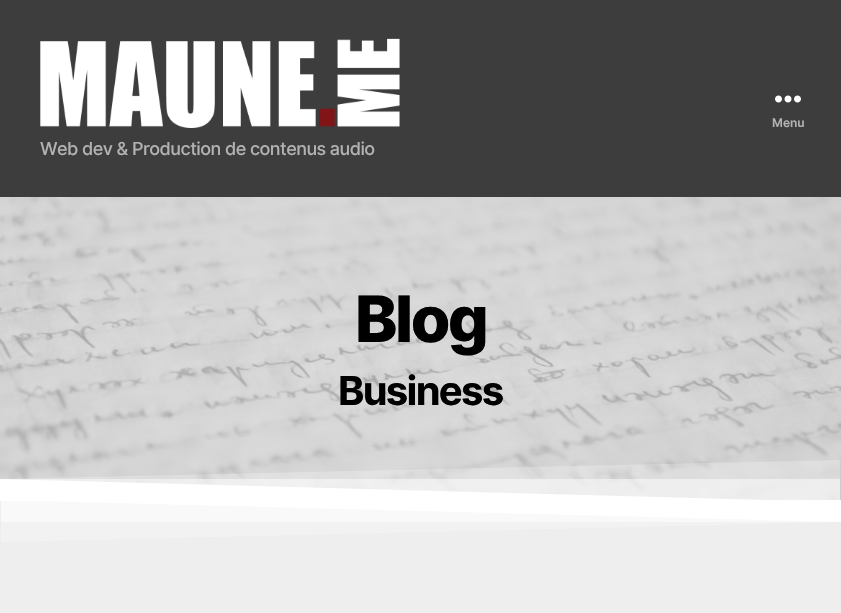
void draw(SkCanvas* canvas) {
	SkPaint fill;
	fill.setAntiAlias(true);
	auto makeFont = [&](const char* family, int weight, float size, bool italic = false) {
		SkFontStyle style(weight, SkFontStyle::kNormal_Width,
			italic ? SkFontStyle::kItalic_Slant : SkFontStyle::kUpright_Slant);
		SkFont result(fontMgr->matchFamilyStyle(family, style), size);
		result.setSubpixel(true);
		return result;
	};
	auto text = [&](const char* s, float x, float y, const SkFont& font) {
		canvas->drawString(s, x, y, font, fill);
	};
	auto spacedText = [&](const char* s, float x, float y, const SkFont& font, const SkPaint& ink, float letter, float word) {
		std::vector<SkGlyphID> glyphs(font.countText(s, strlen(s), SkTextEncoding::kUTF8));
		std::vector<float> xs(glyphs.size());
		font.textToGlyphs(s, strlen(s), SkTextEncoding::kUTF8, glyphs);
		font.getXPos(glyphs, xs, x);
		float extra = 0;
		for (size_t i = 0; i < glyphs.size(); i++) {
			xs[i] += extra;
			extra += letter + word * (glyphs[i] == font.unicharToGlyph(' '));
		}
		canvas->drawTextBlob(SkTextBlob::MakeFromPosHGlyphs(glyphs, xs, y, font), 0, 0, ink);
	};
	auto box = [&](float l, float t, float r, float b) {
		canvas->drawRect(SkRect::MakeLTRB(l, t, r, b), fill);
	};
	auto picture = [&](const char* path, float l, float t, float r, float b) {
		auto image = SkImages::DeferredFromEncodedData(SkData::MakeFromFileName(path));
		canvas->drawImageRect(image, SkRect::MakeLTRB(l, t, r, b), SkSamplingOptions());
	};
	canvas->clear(0xFF3D3D3D);
	picture("image0.png", 775, 95, 801, 103);
	picture("image1.png", 40, 38, 400, 128);
	picture("image2.png", 0, 197, 841, 500);
	fill.setColor(0xFFFFFFFF);
	canvas->drawPath(SkPathBuilder().moveTo(840, 502).lineTo(0, 502).lineTo(0, 479).close().detach(), fill);
	fill.setColor(0x80FFFFFF);
	box(5, 479, 840, 501);
	fill.setColor(0x40FFFFFF);
	canvas->drawPath(SkPathBuilder().moveTo(0, 502).lineTo(840, 502).lineTo(840, 460).lineTo(0, 479).close().detach(), fill);
	fill.setColor(0xFFEEEEEE);
	box(0, 501, 841, 613);
	fill.setColor(0xFFFFFFFF);
	canvas->drawPath(SkPathBuilder().moveTo(0, 500).lineTo(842, 500).lineTo(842, 522).close().detach(), fill);
	fill.setColor(0x80FFFFFF);
	box(1, 501, 830, 522);
	canvas->save();
	canvas->clipRect(SkRect::MakeLTRB(1, 500, 841, 542));
	fill.setColor(0x40FFFFFF);
	canvas->drawPath(SkPathBuilder().moveTo(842, 500).lineTo(0, 500).lineTo(0, 542).lineTo(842, 522).close().detach(), fill);
	canvas->restore();
	auto font1 = makeFont("Inter", 600, 12);
	fill.setColor(0xFFB2B2B2);
	text("Menu", 772, 127, font1);
	auto font2 = makeFont("Inter", 500, 18);
	spacedText("Web dev & Production de contenus audio", 40, 155, font2, fill, -0.55f, 0);
	auto font3 = makeFont("Inter", 800, 64);
	fill.setColor(0xFF000000);
	spacedText("Blog", 355, 342, font3, fill, -2.5f, 0);
	auto font4 = makeFont("Inter", 700, 40);
	spacedText("Business", 338, 405, font4, fill, -1.75f, 0);
}
